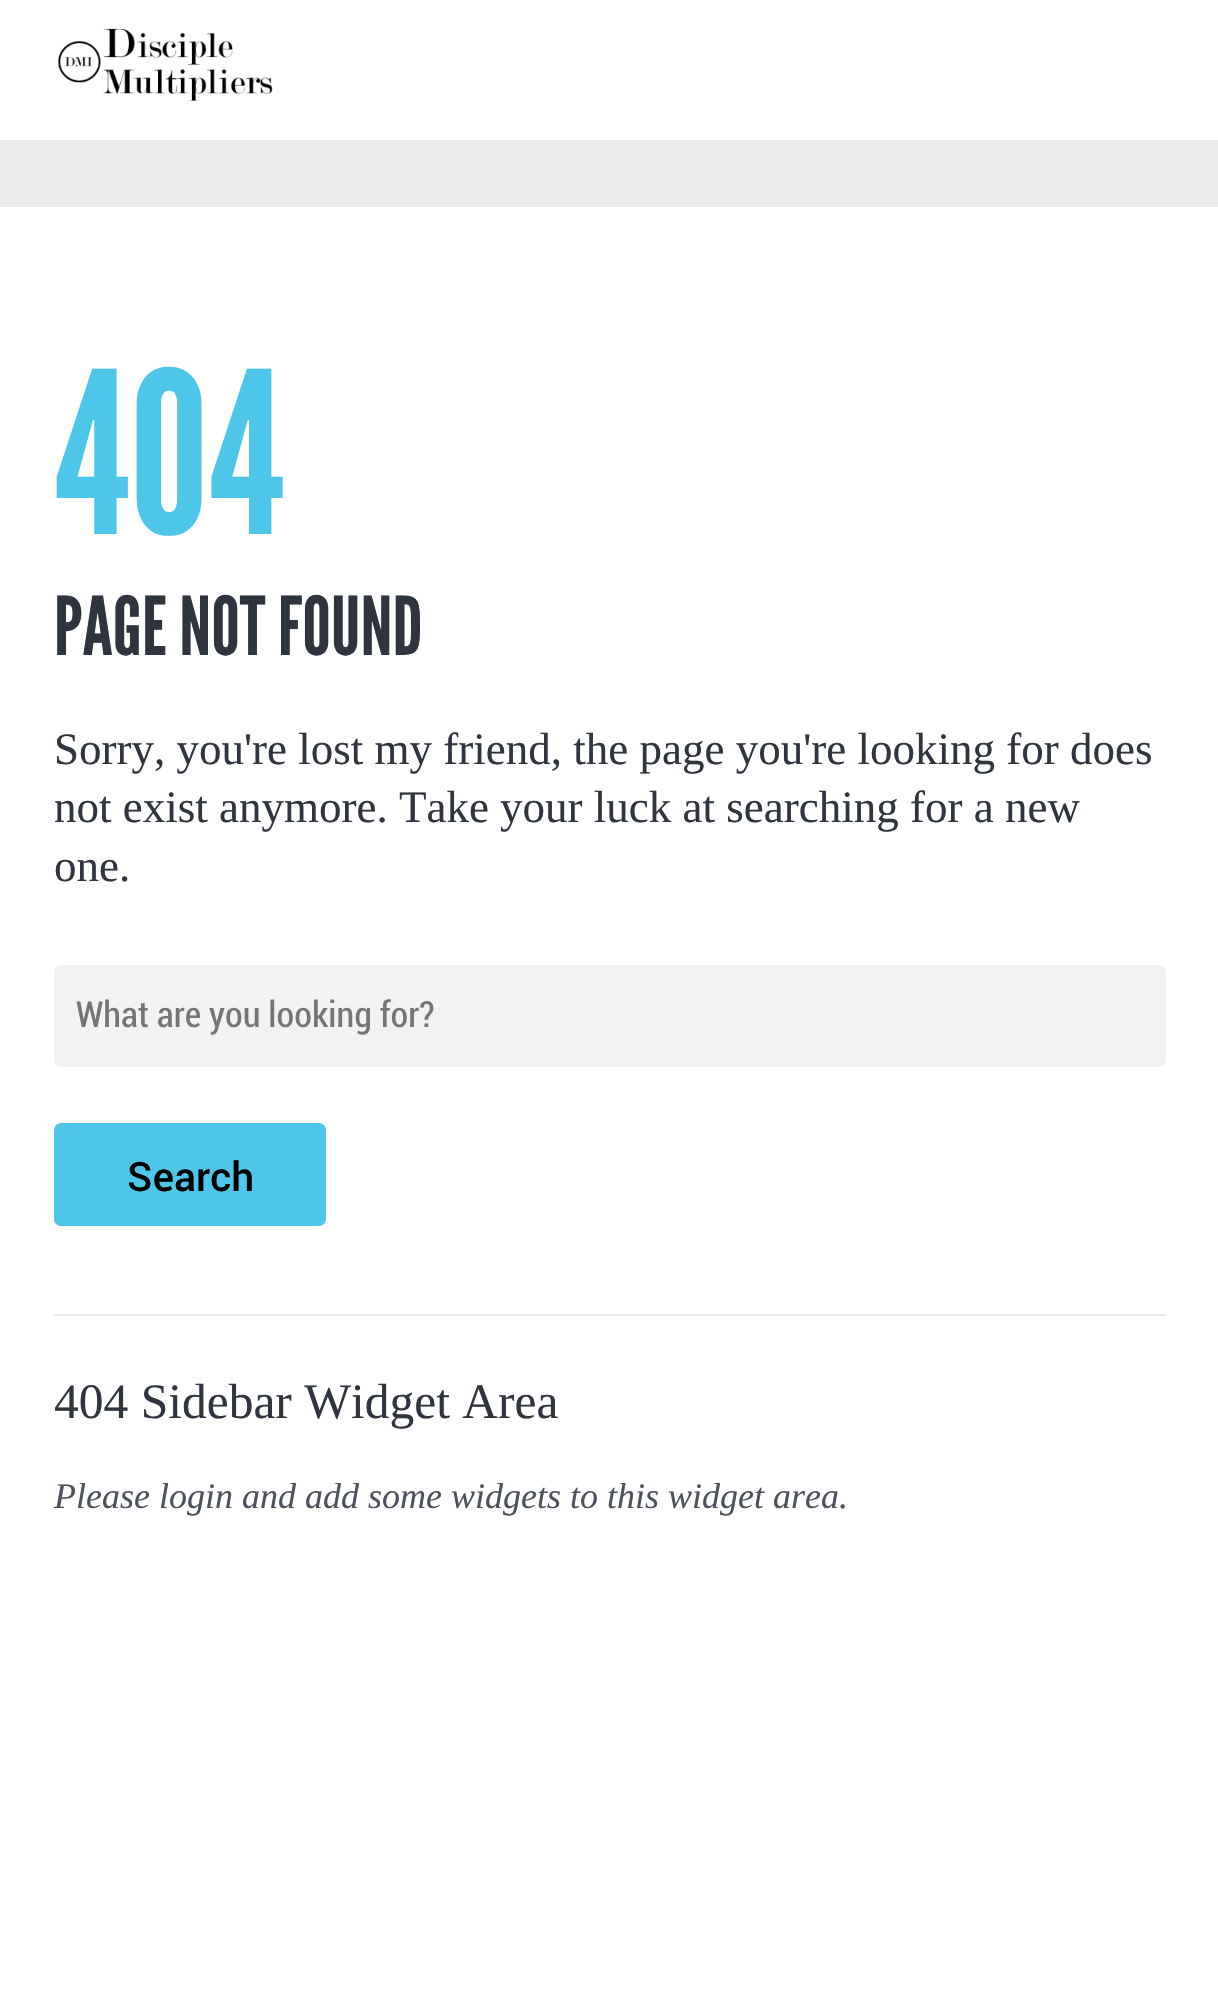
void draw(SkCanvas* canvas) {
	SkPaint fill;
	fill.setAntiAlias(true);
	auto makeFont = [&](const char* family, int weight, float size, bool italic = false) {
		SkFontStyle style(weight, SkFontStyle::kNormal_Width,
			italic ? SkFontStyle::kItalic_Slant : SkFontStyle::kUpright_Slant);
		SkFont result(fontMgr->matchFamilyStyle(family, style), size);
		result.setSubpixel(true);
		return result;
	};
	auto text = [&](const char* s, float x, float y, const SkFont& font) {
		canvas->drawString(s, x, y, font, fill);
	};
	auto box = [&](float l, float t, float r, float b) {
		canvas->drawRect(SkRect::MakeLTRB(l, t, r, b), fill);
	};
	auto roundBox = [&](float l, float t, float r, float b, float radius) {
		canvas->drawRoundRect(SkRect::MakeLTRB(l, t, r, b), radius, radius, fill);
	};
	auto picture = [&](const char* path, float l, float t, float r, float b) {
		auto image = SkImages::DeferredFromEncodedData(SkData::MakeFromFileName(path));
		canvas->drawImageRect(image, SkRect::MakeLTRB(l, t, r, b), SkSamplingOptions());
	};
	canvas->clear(0xFFFFFFFF);
	picture("image0.png", 57, 28, 273, 101);
	fill.setColor(0xFFEAEAEA);
	box(0, 140, 1218, 207);
	fill.setColor(0xFFF2F2F2);
	roundBox(54, 965, 1166, 1067, 7);
	fill.setColor(0xFF4EC6E9);
	roundBox(54, 1123, 326, 1226, 7);
	fill.setColor(0xFFEAEAEA);
	box(54, 1314, 1166, 1316);
	auto font1 = makeFont("League Gothic", 400, 225);
	fill.setColor(0xFF4EC6E9);
	text("404", 54, 534, font1);
	auto font2 = makeFont("League Gothic", 400, 81);
	fill.setColor(0xFF2F353F);
	text("PAGE NOT FOUND", 54, 655, font2);
	auto font3 = makeFont("Liberation Serif", 400, 45);
	text("Sorry, you're lost my friend, the page you're looking for does", 54, 764, font3);
	text("not exist anymore. Take your luck at searching for a new", 54, 822, font3);
	text("one.", 54, 881, font3);
	auto font4 = makeFont("Roboto", 400, 36);
	fill.setColor(0xFF757575);
	text("What are you looking for?", 76, 1027, font4);
	auto font5 = makeFont("Roboto", 500, 40.5f);
	fill.setColor(0xFF000000);
	text("Search", 127, 1191, font5);
	auto font6 = makeFont("Liberation Serif", 400, 49.5f);
	fill.setColor(0xFF2F353F);
	text("404 Sidebar Widget Area", 54, 1418, font6);
	auto font7 = makeFont("Liberation Serif", 400, 36, true);
	fill.setColor(0xFF4B525D);
	text("Please login and add some widgets to this widget area.", 54, 1508, font7);
}
